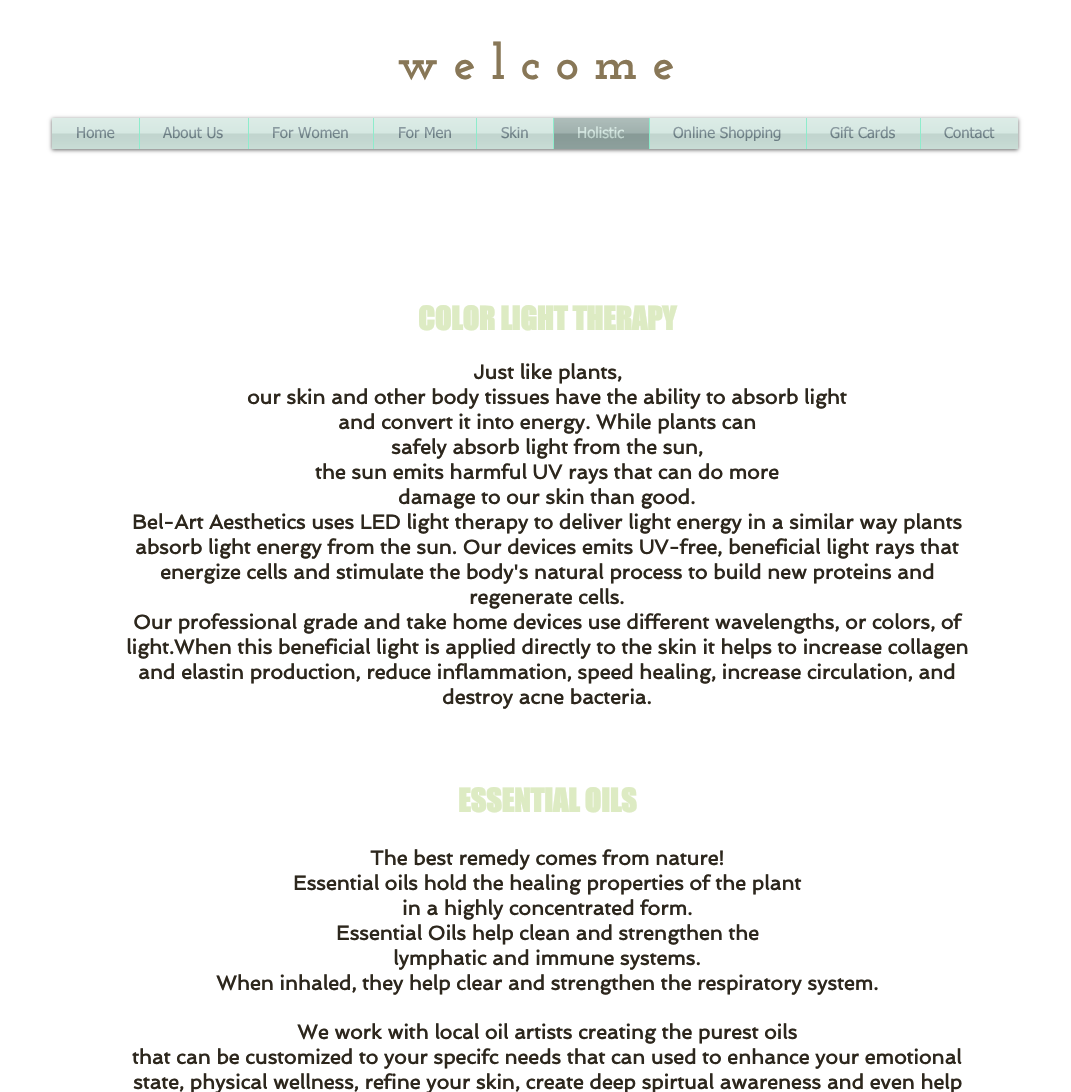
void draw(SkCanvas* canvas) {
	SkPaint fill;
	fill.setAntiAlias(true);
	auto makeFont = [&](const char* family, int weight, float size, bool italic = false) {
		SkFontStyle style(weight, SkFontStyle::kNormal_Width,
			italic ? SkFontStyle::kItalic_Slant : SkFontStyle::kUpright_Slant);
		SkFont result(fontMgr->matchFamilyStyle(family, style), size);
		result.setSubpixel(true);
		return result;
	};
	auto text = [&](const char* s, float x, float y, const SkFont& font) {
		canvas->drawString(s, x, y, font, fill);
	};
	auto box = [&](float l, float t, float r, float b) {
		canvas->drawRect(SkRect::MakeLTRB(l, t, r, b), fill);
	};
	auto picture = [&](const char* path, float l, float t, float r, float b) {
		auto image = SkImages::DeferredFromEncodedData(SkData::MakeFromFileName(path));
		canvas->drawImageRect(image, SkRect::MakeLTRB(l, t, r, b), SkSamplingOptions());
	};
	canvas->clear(0xFFFFFFFF);
	fill.setColor(0x99000000);
	fill.setMaskFilter(SkMaskFilter::MakeBlur(kNormal_SkBlurStyle, 2));
	canvas->drawRect(SkRect::MakeLTRB(52, 119, 1018, 150), fill);
	fill.setMaskFilter(nullptr);
	fill.setColor(0xFFD0E5DE);
	box(52, 118, 139, 149);
	box(140, 118, 248, 149);
	fill.setColor(0xFF8EECCC);
	box(139, 118, 140, 149);
	fill.setColor(0xFFD0E5DE);
	box(249, 118, 373, 149);
	fill.setColor(0xFF8EECCC);
	box(248, 118, 249, 149);
	fill.setColor(0xFFD0E5DE);
	box(374, 118, 476, 149);
	fill.setColor(0xFF8EECCC);
	box(373, 118, 374, 149);
	fill.setColor(0xFFD0E5DE);
	box(477, 118, 553, 149);
	fill.setColor(0xFF8EECCC);
	box(476, 118, 477, 149);
	fill.setColor(0xFF92A6A2);
	box(554, 118, 649, 149);
	fill.setColor(0xFF8EECCC);
	box(553, 118, 554, 149);
	fill.setColor(0xFFD0E5DE);
	box(650, 118, 806, 149);
	fill.setColor(0xFF8EECCC);
	box(649, 118, 650, 149);
	fill.setColor(0xFFD0E5DE);
	box(807, 118, 920, 149);
	fill.setColor(0xFF8EECCC);
	box(806, 118, 807, 149);
	fill.setColor(0xFFD0E5DE);
	box(921, 118, 1018, 149);
	fill.setColor(0xFF8EECCC);
	box(920, 118, 921, 149);
	auto font1 = makeFont("Josefin Slab", 700, 50);
	fill.setColor(0xFF887757);
	text("w e l c o m e", 397, 79, font1);
	auto font2 = makeFont("tahoma", 400, 15);
	fill.setColor(0xFF72858C);
	text("Home", 76, 138, font2);
	picture("image0.png", 52, 118, 139, 149);
	text("About Us", 163, 138, font2);
	picture("image1.png", 140, 118, 248, 149);
	text("For Women", 272, 138, font2);
	picture("image2.png", 249, 118, 373, 149);
	text("For Men", 398, 138, font2);
	picture("image3.png", 374, 118, 476, 149);
	text("Skin", 501, 138, font2);
	picture("image4.png", 477, 118, 553, 149);
	fill.setColor(0xFFD0E5DE);
	text("Holistic", 577, 138, font2);
	picture("image5.png", 554, 118, 649, 149);
	fill.setColor(0xFF72858C);
	text("Online Shopping", 673, 138, font2);
	picture("image6.png", 650, 118, 806, 149);
	text("Gift Cards", 830, 138, font2);
	picture("image7.png", 807, 118, 920, 149);
	text("Contact", 944, 138, font2);
	picture("image8.png", 921, 118, 1018, 149);
	auto font3 = makeFont("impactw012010", 700, 30);
	fill.setColor(0xFFDDEBC3);
	text("COLOR LIGHT THERAPY", 418, 330, font3);
	auto font4 = makeFont("Spinnaker", 700, 20);
	fill.setColor(0xFF2D271D);
	text("Just like plants,", 473, 379, font4);
	text("our skin and other body tissues have the ability to absorb light", 247, 404, font4);
	text("and convert it into energy. While plants can", 338, 429, font4);
	text("safely absorb light from the sun,", 391, 454, font4);
	text("the sun emits harmful UV rays that can do more", 315, 479, font4);
	text("damage to our skin than good.", 398, 504, font4);
	text("Bel-Art Aesthetics uses LED light therapy to deliver light energy in a similar way plants", 132, 529, font4);
	text("absorb light energy from the sun. Our devices emits UV-free, beneficial light rays that", 135, 554, font4);
	text("energize cells and stimulate the body's natural process to build new proteins and", 160, 579, font4);
	text("regenerate cells.", 469, 604, font4);
	text("Our professional grade and take home devices use different wavelengths, or colors, of", 133, 629, font4);
	text("light.When this beneficial light is applied directly to the skin it helps to increase collagen", 126, 654, font4);
	text("and elastin production, reduce inflammation, speed healing, increase circulation, and", 138, 679, font4);
	text("destroy acne bacteria.", 442, 704, font4);
	fill.setColor(0xFFDDEBC3);
	text("ESSENTIAL OILS", 458, 812, font3);
	fill.setColor(0xFF2D271D);
	text("The best remedy comes from nature!", 370, 865, font4);
	text("Essential oils hold the healing properties of the plant", 293, 890, font4);
	text("in a highly concentrated form.", 402, 915, font4);
	text("Essential Oils help clean and strengthen the", 336, 940, font4);
	text("lymphatic and immune systems.", 393, 965, font4);
	text("When inhaled, they help clear and strengthen the respiratory system.", 216, 990, font4);
	text("We work with local oil artists creating the purest oils", 297, 1039, font4);
	text("that can be customized to your specifc needs that can used to enhance your emotional", 132, 1064, font4);
	text("state, physical wellness, refine your skin, create deep spirtual awareness and even help", 133, 1089, font4);
}
